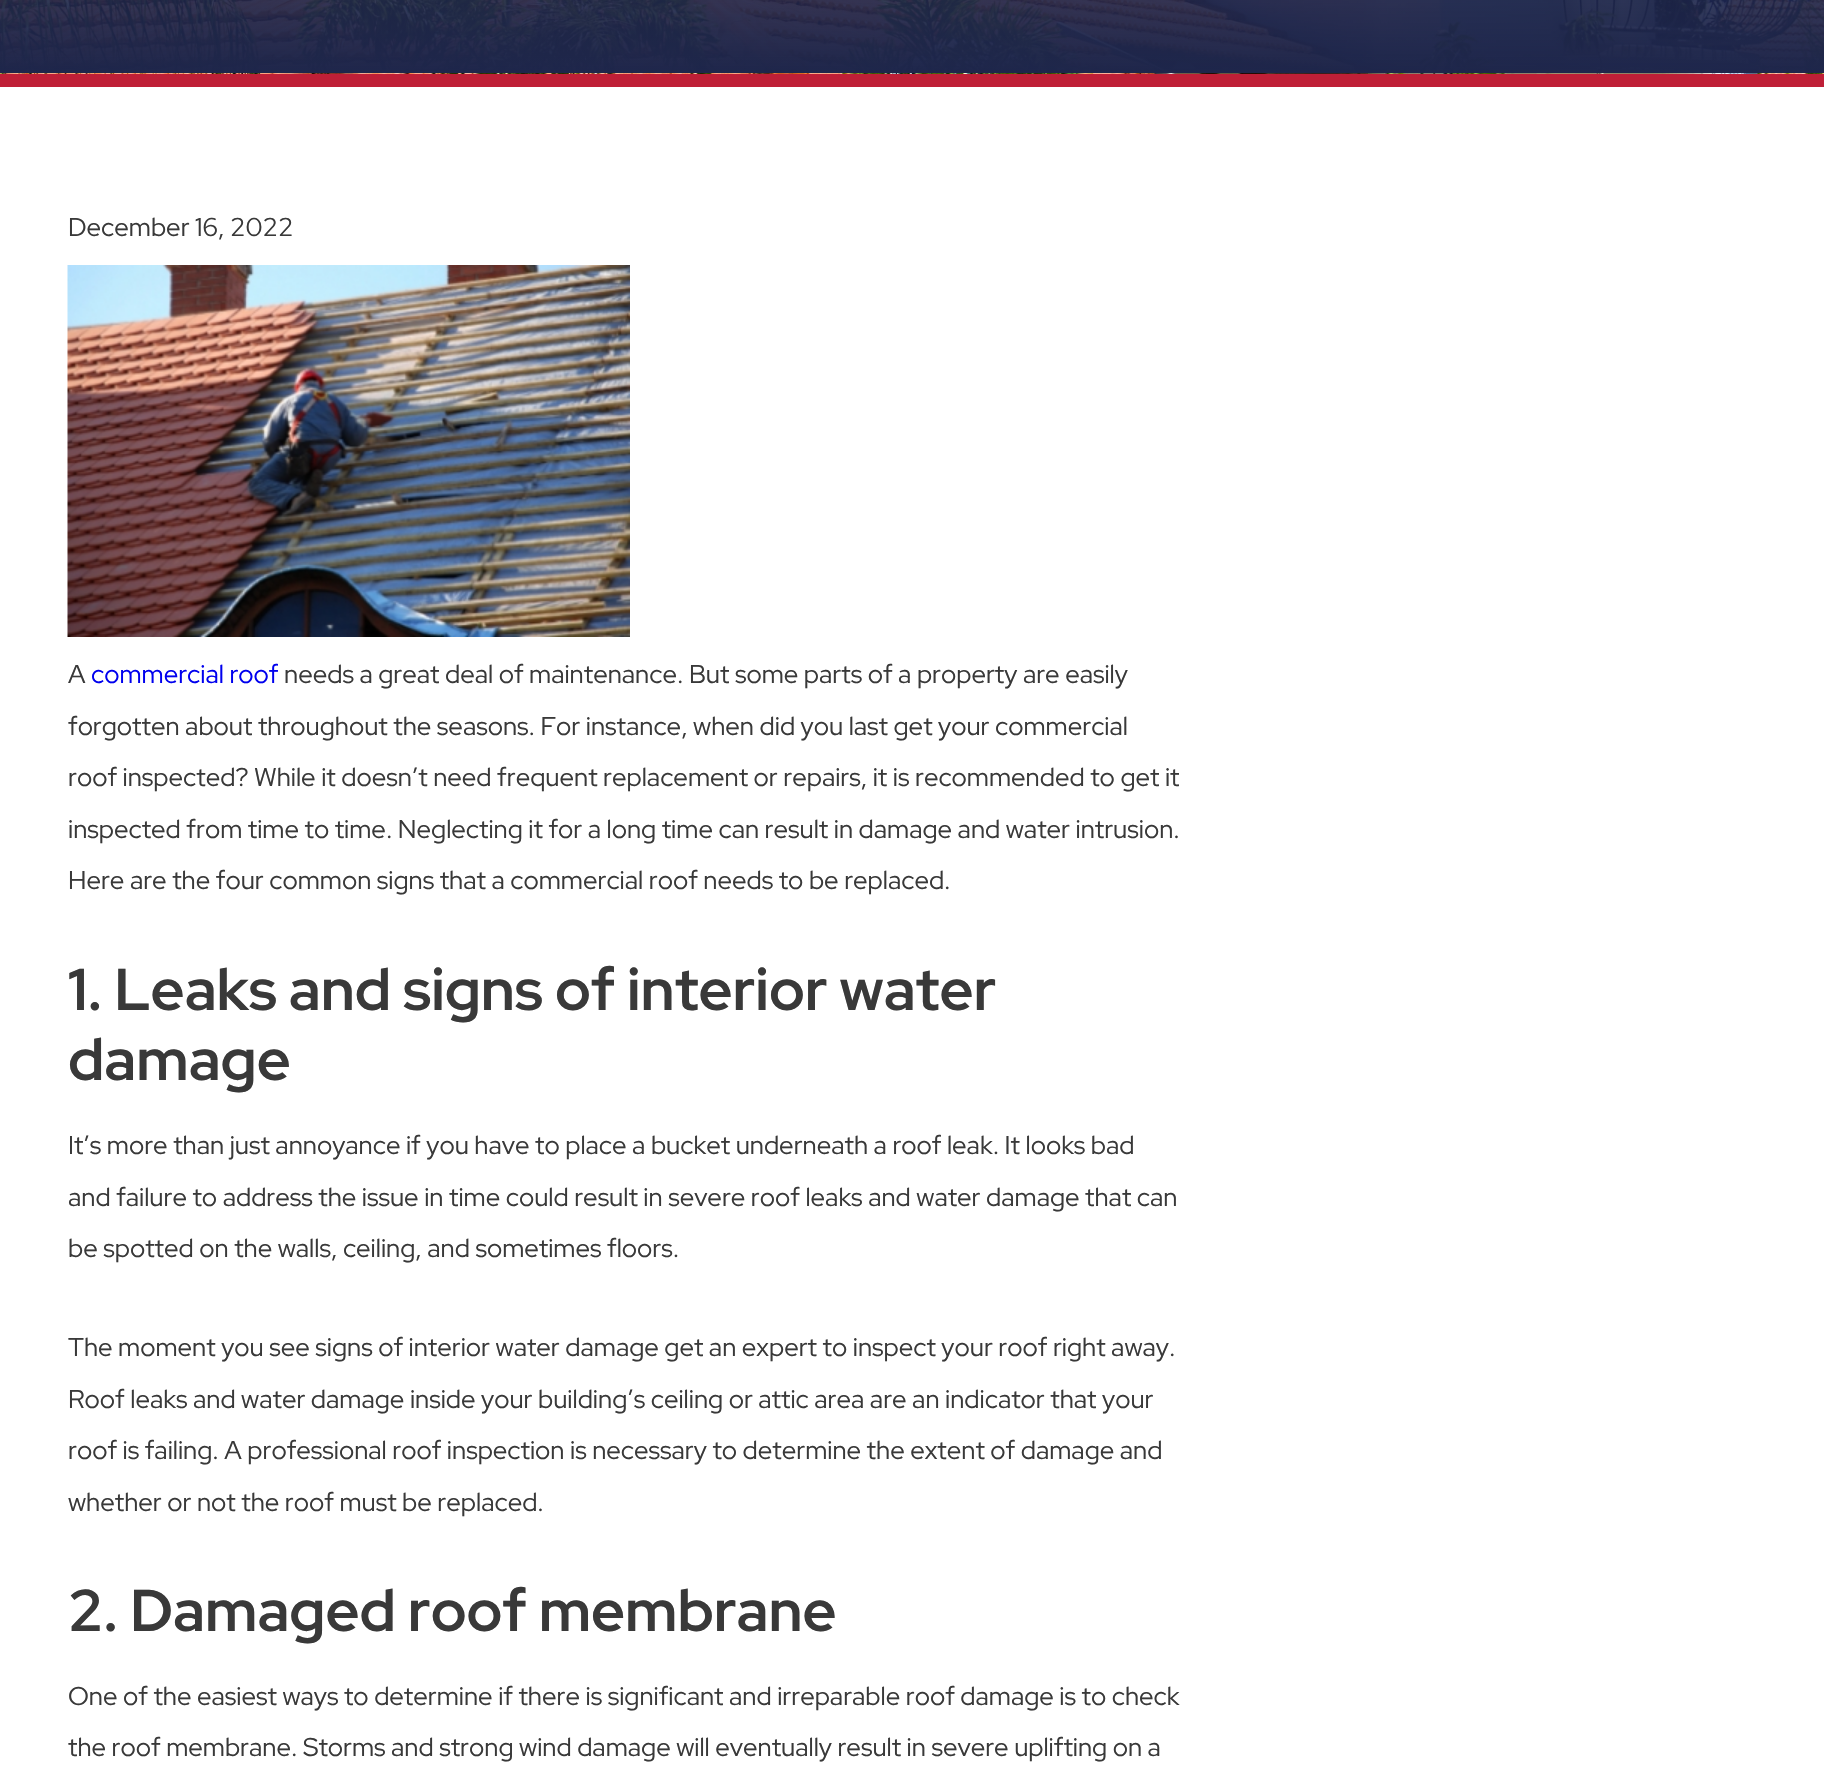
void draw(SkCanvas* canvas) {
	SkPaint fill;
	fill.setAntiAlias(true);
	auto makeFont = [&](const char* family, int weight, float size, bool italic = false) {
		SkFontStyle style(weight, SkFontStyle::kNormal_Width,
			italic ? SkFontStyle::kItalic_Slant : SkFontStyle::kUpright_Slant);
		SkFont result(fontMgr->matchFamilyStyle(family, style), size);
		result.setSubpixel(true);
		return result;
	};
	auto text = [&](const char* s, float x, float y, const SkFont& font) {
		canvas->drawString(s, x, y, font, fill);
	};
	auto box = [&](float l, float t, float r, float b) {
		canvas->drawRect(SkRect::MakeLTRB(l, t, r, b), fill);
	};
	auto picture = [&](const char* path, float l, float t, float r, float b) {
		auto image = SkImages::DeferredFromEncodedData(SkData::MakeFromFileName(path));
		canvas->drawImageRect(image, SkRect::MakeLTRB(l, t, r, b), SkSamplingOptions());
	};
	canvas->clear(0xFFFFFFFF);
	picture("image0.png", 0, 0, 1824, 74);
	fill.setColor(0xFFBF1F37);
	box(0, 74, 1824, 87);
	picture("image1.png", 67, 265, 630, 637);
	auto font1 = makeFont("Red Hat Display", 400, 25.75f);
	fill.setColor(0xFF393939);
	text("December 16, 2022", 68, 236, font1);
	text("A", 68, 683, font1);
	fill.setColor(0xFF0000EE);
	text("commercial roof", 91, 683, font1);
	fill.setColor(0xFF393939);
	text("needs a great deal of maintenance. But some parts of a property are easily", 284, 683, font1);
	text("forgotten about throughout the seasons. For instance, when did you last get your commercial", 68, 735, font1);
	text("roof inspected? While it doesn’t need frequent replacement or repairs, it is recommended to get it", 68, 786, font1);
	text("inspected from time to time. Neglecting it for a long time can result in damage and water intrusion.", 68, 838, font1);
	text("Here are the four common signs that a commercial roof needs to be replaced.", 68, 889, font1);
	auto font2 = makeFont("Red Hat Display", 700, 58.8f);
	text("1. Leaks and signs of interior water", 68, 1010, font2);
	text("damage", 68, 1080, font2);
	text("It’s more than just annoyance if you have to place a bucket underneath a roof leak. It looks bad", 68, 1154, font1);
	text("and failure to address the issue in time could result in severe roof leaks and water damage that can", 68, 1206, font1);
	text("be spotted on the walls, ceiling, and sometimes floors.", 68, 1257, font1);
	text("The moment you see signs of interior water damage get an expert to inspect your roof right away.", 68, 1356, font1);
	text("Roof leaks and water damage inside your building’s ceiling or attic area are an indicator that your", 68, 1408, font1);
	text("roof is failing. A professional roof inspection is necessary to determine the extent of damage and", 68, 1459, font1);
	text("whether or not the roof must be replaced.", 68, 1511, font1);
	text("2. Damaged roof membrane", 68, 1631, font2);
	text("One of the easiest ways to determine if there is significant and irreparable roof damage is to check", 68, 1705, font1);
	text("the roof membrane. Storms and strong wind damage will eventually result in severe uplifting on a", 68, 1756, font1);
}
